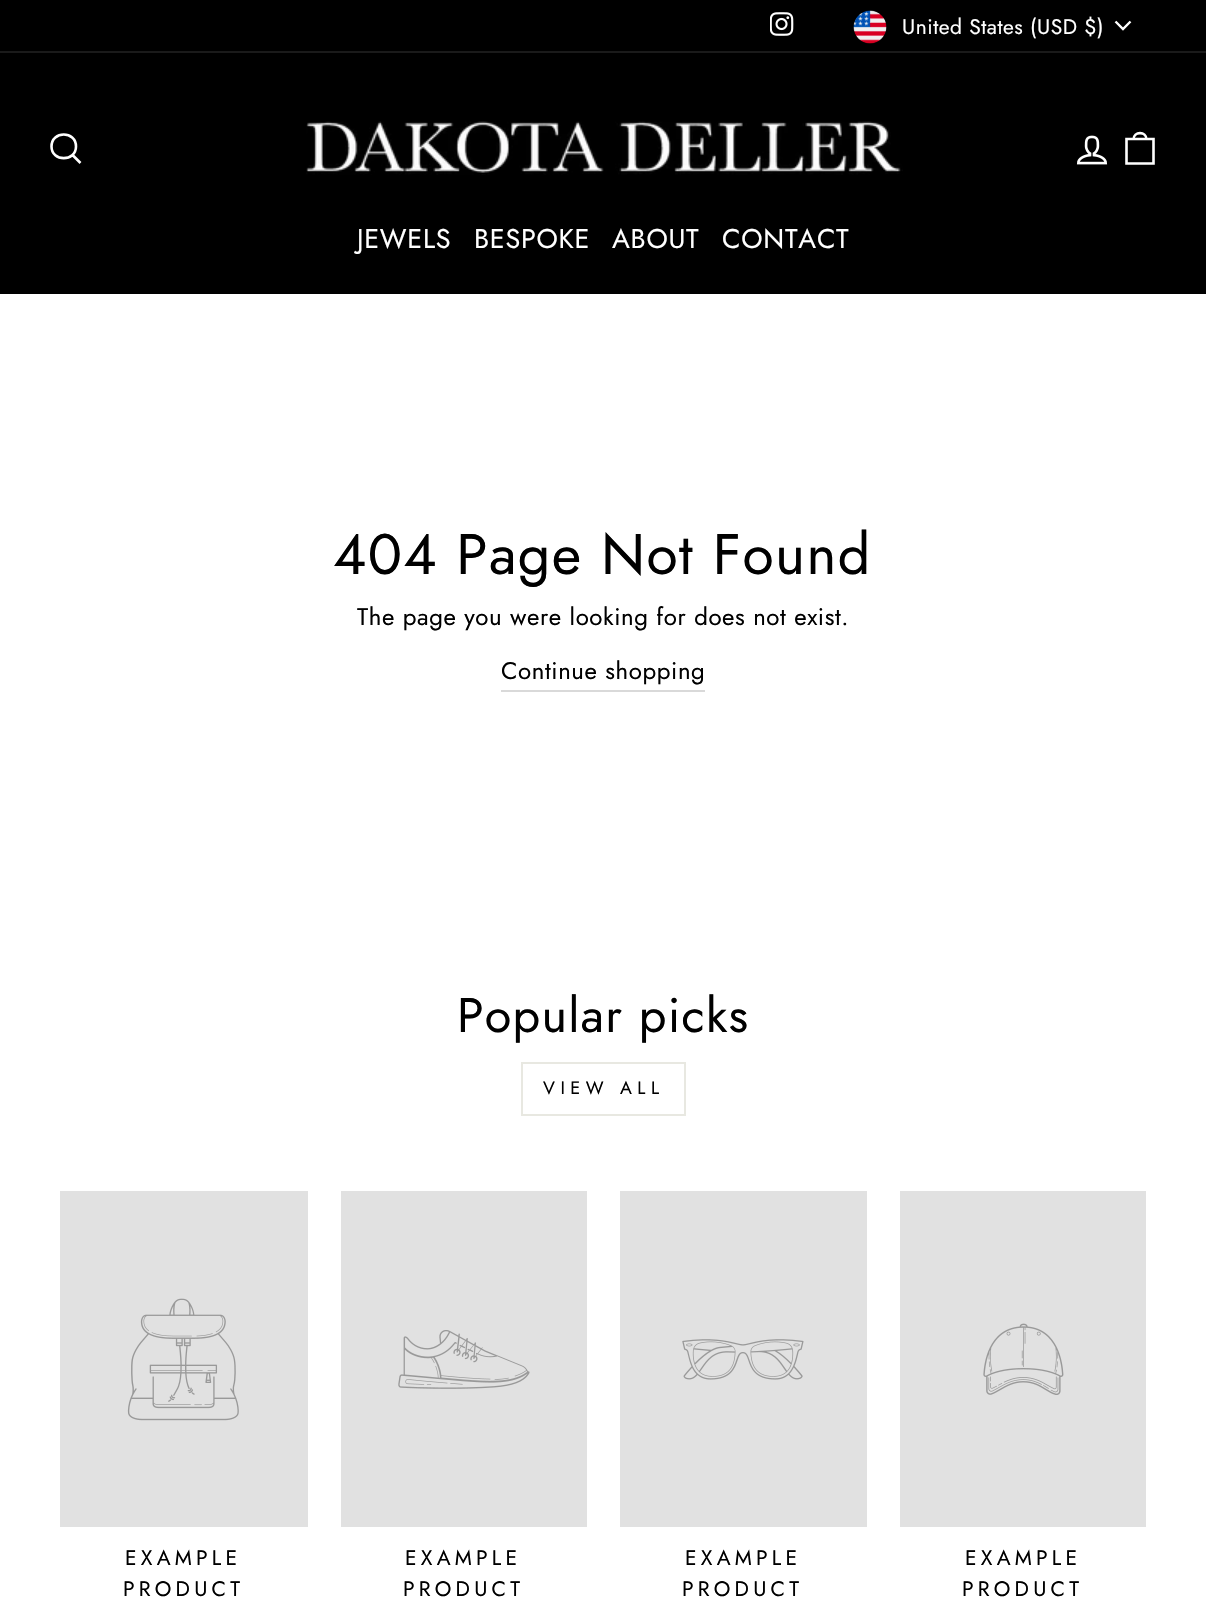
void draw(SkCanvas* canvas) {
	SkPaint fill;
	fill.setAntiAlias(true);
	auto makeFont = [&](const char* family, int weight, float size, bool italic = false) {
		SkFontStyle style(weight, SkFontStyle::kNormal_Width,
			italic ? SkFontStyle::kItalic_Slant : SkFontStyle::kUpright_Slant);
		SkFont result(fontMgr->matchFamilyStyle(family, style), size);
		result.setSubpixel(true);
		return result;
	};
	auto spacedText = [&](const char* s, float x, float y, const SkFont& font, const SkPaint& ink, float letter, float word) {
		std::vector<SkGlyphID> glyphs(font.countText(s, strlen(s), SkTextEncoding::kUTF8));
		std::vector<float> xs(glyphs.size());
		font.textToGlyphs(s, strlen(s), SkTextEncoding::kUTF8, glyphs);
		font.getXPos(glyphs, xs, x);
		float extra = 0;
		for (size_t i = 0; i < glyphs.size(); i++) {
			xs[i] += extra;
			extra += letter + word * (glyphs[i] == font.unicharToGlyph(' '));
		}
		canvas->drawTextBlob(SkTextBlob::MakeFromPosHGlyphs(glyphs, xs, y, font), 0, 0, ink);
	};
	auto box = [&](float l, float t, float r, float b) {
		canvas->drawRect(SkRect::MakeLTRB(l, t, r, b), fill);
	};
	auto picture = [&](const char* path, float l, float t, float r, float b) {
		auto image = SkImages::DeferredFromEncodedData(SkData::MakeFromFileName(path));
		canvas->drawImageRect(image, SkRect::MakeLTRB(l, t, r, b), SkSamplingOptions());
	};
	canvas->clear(0xFFFFFFFF);
	fill.setColor(0xFF000000);
	box(0, 0, 1206, 51);
	picture("image0.png", 770, 12, 794, 36);
	picture("image1.png", 853, 10, 887, 44);
	fill.setStyle(SkPaint::kStroke_Style);
	fill.setStrokeWidth(2.4f);
	fill.setColor(0xFFFFFFFF);
	canvas->drawPath(SkPathBuilder().moveTo(1115.5f, 21.5f).lineTo(1123, 29).lineTo(1130.5f, 21.5f).detach(), fill);
	fill.setStyle(SkPaint::kFill_Style);
	fill.setColor(0xFF000000);
	box(0, 53, 1206, 294);
	fill.setColor(0xFF1A1A1A);
	box(0, 51, 1206, 53);
	fill.setStyle(SkPaint::kStroke_Style);
	fill.setStrokeWidth(2.6f);
	fill.setColor(0xFFFFFFFF);
	canvas->drawPath(SkPathBuilder().moveTo(76, 146.5f).cubicTo(76, 162, 51.5f, 162, 51.5f, 146.5f).cubicTo(51.5f, 130.5f, 76, 130.5f, 76, 146.5f).close().moveTo(80.5f, 163).lineTo(72.5f, 155).detach(), fill);
	picture("image2.png", 306, 121, 903, 175);
	picture("image3.png", 1076, 135, 1108, 165);
	canvas->drawPath(SkPathBuilder().moveTo(1126.5f, 139).lineTo(1153.5f, 139).lineTo(1153.5f, 163.5f).lineTo(1126.5f, 163.5f).close().moveTo(1133.5f, 139.5f).cubicTo(1133.5f, 131, 1146.5f, 131, 1146.5f, 139.5f).detach(), fill);
	fill.setStyle(SkPaint::kFill_Style);
	fill.setColor(0xFFD9D9D9);
	box(501, 690, 705, 692);
	fill.setStyle(SkPaint::kStroke_Style);
	fill.setStrokeWidth(2);
	fill.setColor(0xFFE8E8E1);
	canvas->drawRect(SkRect::MakeLTRB(522, 1063, 685, 1115), fill);
	fill.setStyle(SkPaint::kFill_Style);
	fill.setColor(0xFFE1E1E1);
	box(60, 1191, 308, 1527);
	picture("image4.png", 127, 1298, 239, 1421);
	box(341, 1191, 587, 1527);
	picture("image5.png", 398, 1330, 530, 1389);
	box(620, 1191, 867, 1527);
	picture("image6.png", 682, 1339, 804, 1380);
	box(900, 1191, 1146, 1527);
	picture("image7.png", 983, 1323, 1064, 1395);
	auto font1 = makeFont("Jost", 400, 21);
	fill.setColor(0xFFFFFFFF);
	spacedText("United States (USD $)", 902, 34, font1, fill, 0.5f, 0);
	auto font2 = makeFont("Jost", 400, 27);
	spacedText("JEWELS", 357, 248, font2, fill, 0.75f, 0);
	spacedText("BESPOKE", 474, 248, font2, fill, 0.75f, 0);
	spacedText("ABOUT", 612, 248, font2, fill, 0.75f, 0);
	spacedText("CONTACT", 722, 248, font2, fill, 0.75f, 0);
	auto font3 = makeFont("Jost", 400, 57);
	fill.setColor(0xFF000000);
	spacedText("404 Page Not Found", 333, 574, font3, fill, 1.4f, 0);
	auto font4 = makeFont("Jost", 400, 24);
	spacedText("The page you were looking for does not exist.", 357, 625, font4, fill, 0.6f, 0);
	spacedText("Continue shopping", 501, 679, font4, fill, 0.6f, 0);
	auto font5 = makeFont("Jost", 400, 48.5f);
	spacedText("Popular picks", 457, 1032, font5, fill, 1.25f, 0);
	auto font6 = makeFont("Jost", 400, 18);
	spacedText("VIEW ALL", 543, 1094, font6, fill, 5.5f, 0);
	spacedText("EXAMPLE", 125, 1565, font1, fill, 4.25f, 0);
	spacedText("PRODUCT", 123, 1596, font1, fill, 4.25f, 0);
	spacedText("EXAMPLE", 405, 1565, font1, fill, 4.25f, 0);
	spacedText("PRODUCT", 403, 1596, font1, fill, 4.25f, 0);
	spacedText("EXAMPLE", 685, 1565, font1, fill, 4.25f, 0);
	spacedText("PRODUCT", 682, 1596, font1, fill, 4.25f, 0);
	spacedText("EXAMPLE", 965, 1565, font1, fill, 4.25f, 0);
	spacedText("PRODUCT", 962, 1596, font1, fill, 4.25f, 0);
}
